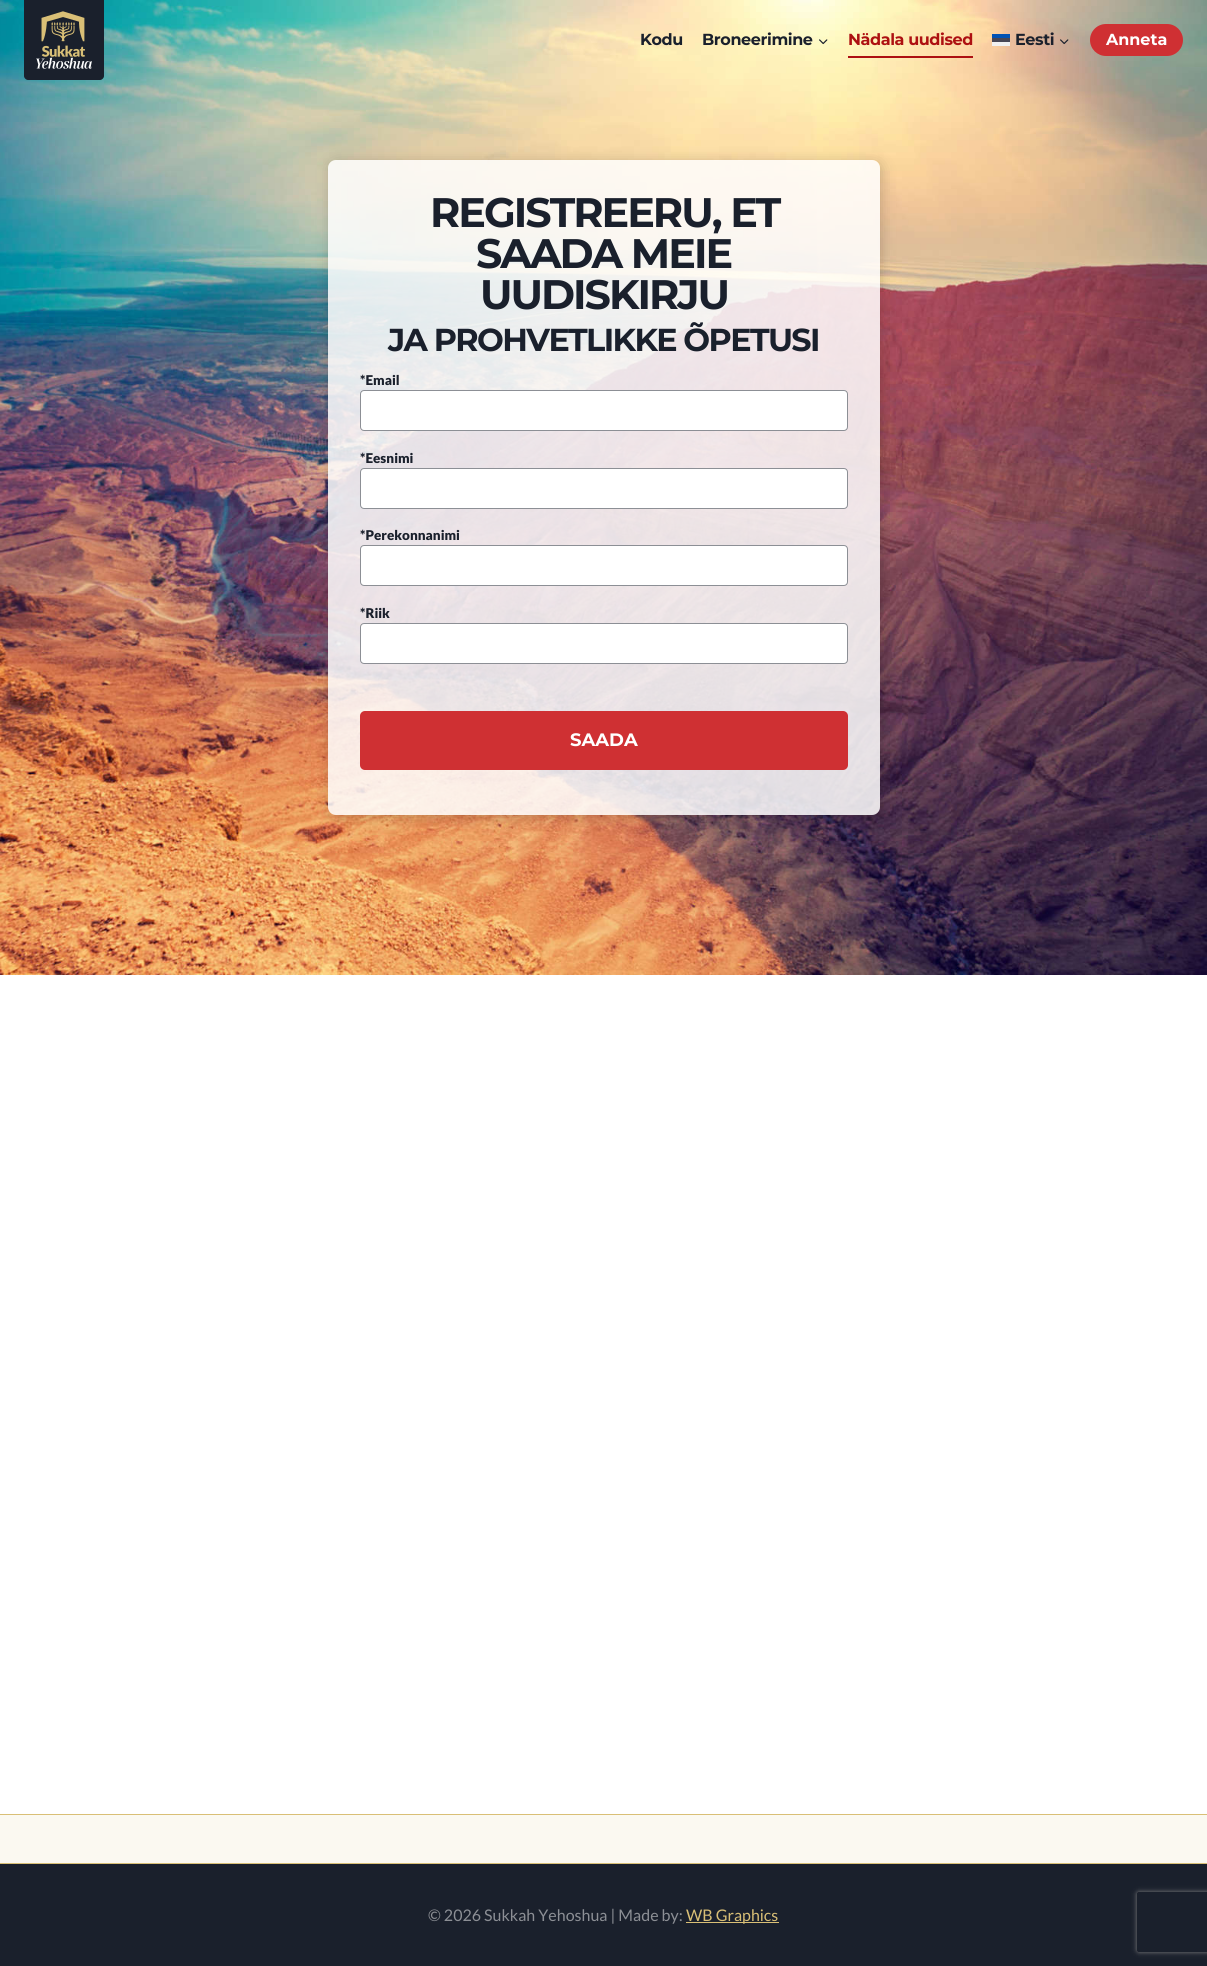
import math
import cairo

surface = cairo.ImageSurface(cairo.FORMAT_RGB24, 1207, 1966)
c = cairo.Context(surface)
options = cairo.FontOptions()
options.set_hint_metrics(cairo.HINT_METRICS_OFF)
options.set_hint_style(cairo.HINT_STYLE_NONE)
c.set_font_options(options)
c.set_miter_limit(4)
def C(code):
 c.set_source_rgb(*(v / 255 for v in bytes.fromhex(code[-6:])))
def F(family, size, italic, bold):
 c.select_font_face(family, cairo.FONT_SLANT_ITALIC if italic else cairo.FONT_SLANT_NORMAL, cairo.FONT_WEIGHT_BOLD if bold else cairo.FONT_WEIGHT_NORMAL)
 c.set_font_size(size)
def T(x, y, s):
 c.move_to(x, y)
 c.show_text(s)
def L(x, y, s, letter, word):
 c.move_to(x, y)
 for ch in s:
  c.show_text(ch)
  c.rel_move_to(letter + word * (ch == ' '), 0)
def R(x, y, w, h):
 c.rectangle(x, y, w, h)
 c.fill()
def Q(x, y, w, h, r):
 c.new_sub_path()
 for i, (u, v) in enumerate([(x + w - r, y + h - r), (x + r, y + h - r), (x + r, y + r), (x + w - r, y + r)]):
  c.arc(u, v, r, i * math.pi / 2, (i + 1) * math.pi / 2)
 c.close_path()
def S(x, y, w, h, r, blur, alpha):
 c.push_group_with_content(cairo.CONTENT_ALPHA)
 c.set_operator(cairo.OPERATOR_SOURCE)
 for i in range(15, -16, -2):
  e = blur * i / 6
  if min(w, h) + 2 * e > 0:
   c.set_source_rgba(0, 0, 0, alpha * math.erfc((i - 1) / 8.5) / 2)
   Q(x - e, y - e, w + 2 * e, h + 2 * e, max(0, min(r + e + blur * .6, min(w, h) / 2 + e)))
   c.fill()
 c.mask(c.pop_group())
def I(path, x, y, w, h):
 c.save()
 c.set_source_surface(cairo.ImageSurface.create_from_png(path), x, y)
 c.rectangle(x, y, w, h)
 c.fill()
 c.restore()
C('ffffff')
c.paint()
I('4.png',0,0,1207,975)
C('1a202c')
c.new_path()
c.move_to(24,0)
c.line_to(104,0)
c.line_to(104,76)
c.curve_to(104,78,102,80,100,80)
c.line_to(28,80)
c.curve_to(26,80,24,78,24,76)
c.close_path()
c.fill()
I('1.png',36,11,56,58)
F('Montserrat Thin',16,0,0)
L(640,45,'Kodu',-.4,0)
L(702,45,'Broneerimine',-.4,0)
I('2.png',819,39,9,6)
C('ad1011')
L(848,45,'Nädala uudised',-.4,0)
R(848,56,125,2)
C('464655')
R(992,38,18,4)
C('f0f0f0')
R(992,42,18,4)
C('0052b4')
R(992,34,18,4)
C('1a202c')
L(1015,45,'Eesti',-.4,0)
I('3.png',1060,39,9,6)
C('cf3033')
Q(1090,24,93,32,16)
c.fill()
C('ffffff')
T(1106,45,'Anneta')
c.save()
c.set_fill_rule(cairo.FILL_RULE_EVEN_ODD)
c.new_path()
c.move_to(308,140)
c.line_to(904,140)
c.line_to(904,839)
c.line_to(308,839)
c.close_path()
c.move_to(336,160)
c.line_to(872,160)
c.curve_to(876.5,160,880,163.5,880,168)
c.line_to(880,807)
c.curve_to(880,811.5,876.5,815,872,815)
c.line_to(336,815)
c.curve_to(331.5,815,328,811.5,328,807)
c.line_to(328,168)
c.curve_to(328,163.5,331.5,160,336,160)
c.close_path()
c.clip()
C('000000')
S(330,162,552,655,8,7,.2)
c.restore()
c.set_source_rgba(1,1,1,0.85)
Q(328,160,552,655,8)
c.fill()
F('Montserrat Thin',41.25,0,0)
C('1a202c')
L(430,227,'REGISTREERU, ET',-2,0)
L(476,268,'SAADA MEIE',-2,0)
L(480,309,'UUDISKIRJU',-2,0)
F('Montserrat Thin',31.75,0,0)
L(388,351,'JA PROHVETLIKKE ÕPETUSI',-1.6,0)
F('Lato Black',13.5,0,0)
T(360,385,'*Email')
C('ffffff')
Q(360.5,390.5,487,40,3.5)
c.fill_preserve()
C('8c8f95')
c.set_line_width(1)
c.stroke()
C('1a202c')
T(360,463,'*Eesnimi')
C('ffffff')
Q(360.5,468.5,487,40,3.5)
c.fill_preserve()
C('8c8f95')
c.stroke()
C('1a202c')
T(360,540,'*Perekonnanimi')
C('ffffff')
Q(360.5,545.5,487,40,3.5)
c.fill_preserve()
C('8c8f95')
c.stroke()
C('1a202c')
T(360,618,'*Riik')
C('ffffff')
Q(360.5,623.5,487,40,3.5)
c.fill_preserve()
C('8c8f95')
c.stroke()
C('cf3033')
Q(360,711,488,59,5)
c.fill()
F('Montserrat Thin',18,0,0)
C('ffffff')
T(570,746,'SAADA')
C('fbf9f1')
R(0,1815,1207,48)
C('d9bf76')
R(0,1814,1207,1)
R(0,1863,1207,1)
C('1a202c')
R(0,1864,1207,102)
F('Lato',16,0,0)
C('8c8f95')
T(428,1921,'© 2026 Sukkah Yehoshua | Made by:')
C('d9bf76')
R(686,1922,93,1)
T(686,1921,'WB Graphics')
c.save()
c.set_fill_rule(cairo.FILL_RULE_EVEN_ODD)
c.new_path()
c.move_to(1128,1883)
c.line_to(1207,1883)
c.line_to(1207,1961)
c.line_to(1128,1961)
c.close_path()
c.move_to(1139,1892)
c.line_to(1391,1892)
c.curve_to(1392,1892,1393,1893,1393,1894)
c.line_to(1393,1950)
c.curve_to(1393,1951,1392,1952,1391,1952)
c.line_to(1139,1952)
c.curve_to(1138,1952,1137,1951,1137,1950)
c.line_to(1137,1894)
c.curve_to(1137,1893,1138,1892,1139,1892)
c.close_path()
c.clip()
C('808080')
S(1137,1892,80,60,2,2.5,1)
c.restore()
surface.write_to_png('o.png')
